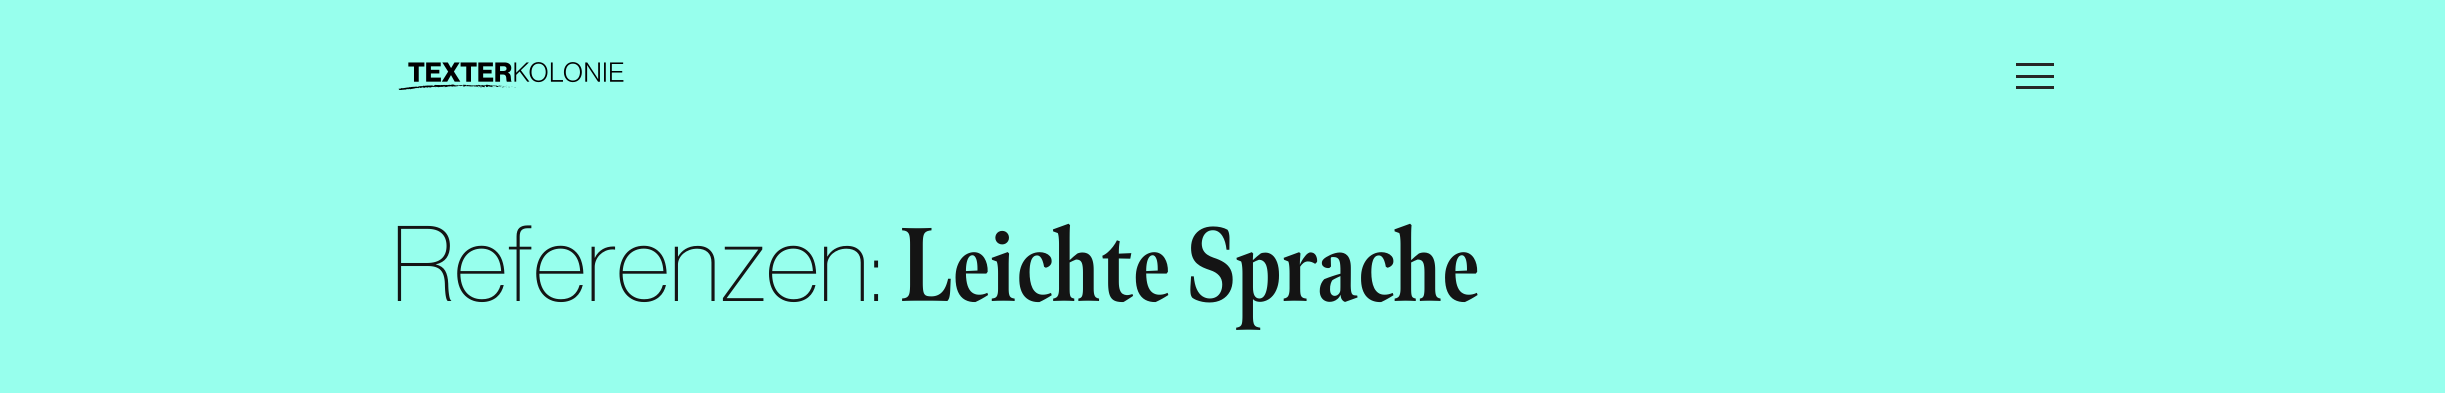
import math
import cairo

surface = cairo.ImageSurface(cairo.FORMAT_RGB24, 2445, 393)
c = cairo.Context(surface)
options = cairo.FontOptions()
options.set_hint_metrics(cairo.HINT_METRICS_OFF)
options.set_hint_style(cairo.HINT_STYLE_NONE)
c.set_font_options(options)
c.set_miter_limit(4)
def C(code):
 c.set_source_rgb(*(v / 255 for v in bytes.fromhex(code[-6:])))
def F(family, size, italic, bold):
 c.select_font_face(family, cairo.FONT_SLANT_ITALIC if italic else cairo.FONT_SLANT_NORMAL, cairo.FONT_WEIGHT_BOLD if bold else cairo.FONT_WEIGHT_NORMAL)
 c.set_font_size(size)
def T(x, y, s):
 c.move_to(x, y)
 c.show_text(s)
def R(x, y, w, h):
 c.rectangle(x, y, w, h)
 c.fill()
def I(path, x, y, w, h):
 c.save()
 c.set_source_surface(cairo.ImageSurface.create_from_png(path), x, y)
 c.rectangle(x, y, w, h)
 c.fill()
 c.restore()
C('97ffed')
c.paint()
I('1.png',398,62,226,28)
C('262626')
R(2016,63,38,3)
R(2016,75,38,3)
R(2016,86,38,3)
F('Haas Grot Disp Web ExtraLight',105,0,0)
C('141414')
T(391,301,'Referenzen:')
F('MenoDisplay',105,0,1)
T(900,301,'Leichte Sprache')
surface.write_to_png('o.png')
